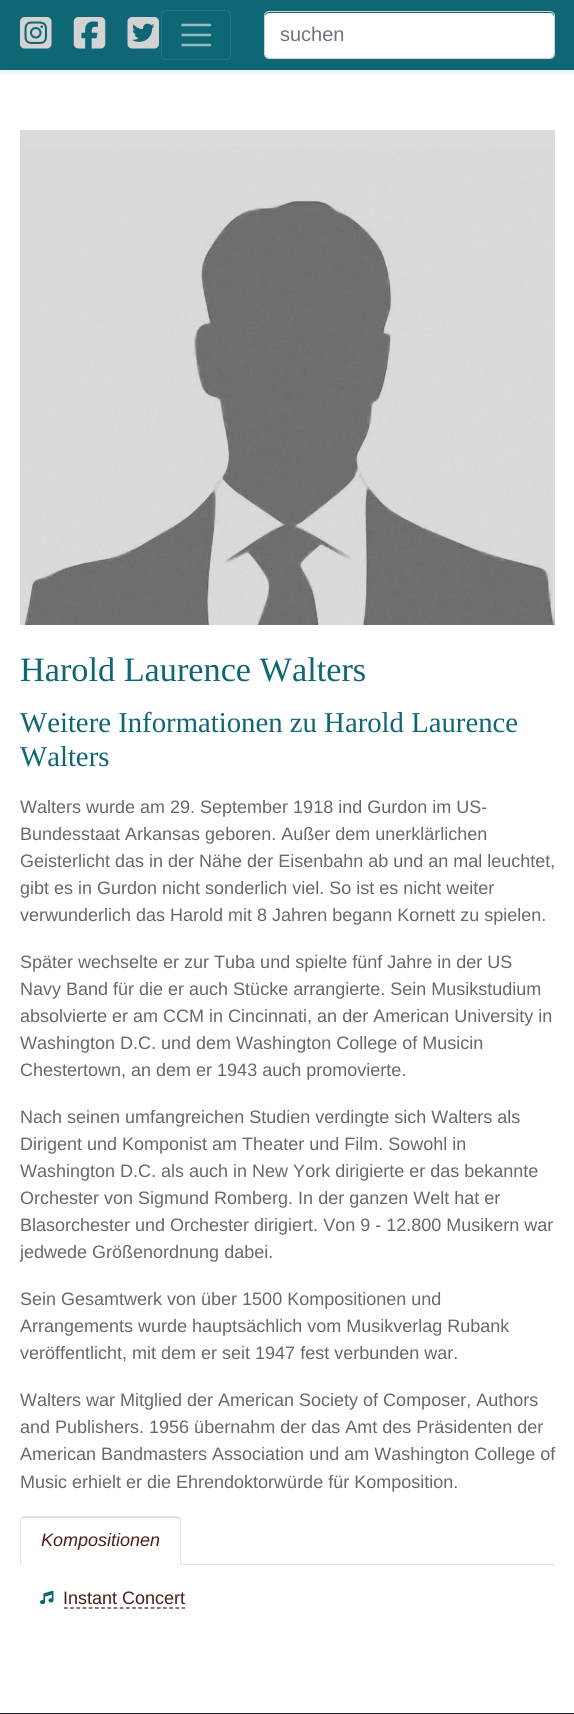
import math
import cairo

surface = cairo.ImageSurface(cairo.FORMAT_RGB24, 574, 1714)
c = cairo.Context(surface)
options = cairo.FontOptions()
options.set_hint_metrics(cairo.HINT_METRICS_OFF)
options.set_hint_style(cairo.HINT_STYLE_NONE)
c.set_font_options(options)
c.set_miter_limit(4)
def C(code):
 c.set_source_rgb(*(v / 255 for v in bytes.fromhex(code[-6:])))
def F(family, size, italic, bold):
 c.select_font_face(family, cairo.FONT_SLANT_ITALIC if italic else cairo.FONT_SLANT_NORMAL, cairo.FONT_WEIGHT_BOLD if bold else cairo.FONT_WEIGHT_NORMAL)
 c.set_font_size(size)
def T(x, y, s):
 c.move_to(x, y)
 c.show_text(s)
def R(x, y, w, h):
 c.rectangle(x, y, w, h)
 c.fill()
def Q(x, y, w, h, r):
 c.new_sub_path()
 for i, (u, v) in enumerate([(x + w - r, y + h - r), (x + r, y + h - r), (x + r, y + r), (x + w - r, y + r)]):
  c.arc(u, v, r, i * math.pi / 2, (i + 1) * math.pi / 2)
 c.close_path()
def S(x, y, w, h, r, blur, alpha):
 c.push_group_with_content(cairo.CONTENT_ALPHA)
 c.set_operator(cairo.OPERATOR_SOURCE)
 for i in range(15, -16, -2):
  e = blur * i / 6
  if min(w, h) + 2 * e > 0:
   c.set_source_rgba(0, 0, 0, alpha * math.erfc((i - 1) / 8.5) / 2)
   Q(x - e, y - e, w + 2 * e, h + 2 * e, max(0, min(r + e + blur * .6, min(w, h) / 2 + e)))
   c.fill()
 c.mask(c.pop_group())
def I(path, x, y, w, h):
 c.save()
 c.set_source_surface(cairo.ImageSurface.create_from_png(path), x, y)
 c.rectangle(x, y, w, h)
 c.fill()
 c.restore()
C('ffffff')
c.paint()
C('000000')
S(0,3,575,70,0,2.5,.07)
C('0f6674')
R(0,0,574,70)
I('1.png',20,17,32,32)
I('2.png',73,17,33,32)
I('3.png',127,17,32,32)
Q(161.5,10.5,69,49,4.5)
C('277582')
c.set_line_width(1)
c.stroke()
c.new_path()
c.move_to(182.5,25)
c.line_to(210,25)
c.move_to(182.5,35)
c.line_to(210,35)
c.move_to(182.5,45)
c.line_to(210,45)
C('93bac0')
c.set_line_width(2.5)
c.set_line_cap(cairo.LINE_CAP_ROUND)
c.stroke()
C('ffffff')
Q(265,13,289,45,4)
c.fill()
Q(264.5,11.5,290,47,4.5)
C('ced4da')
c.set_line_width(1)
c.set_line_cap(cairo.LINE_CAP_BUTT)
c.stroke()
F('Liberation Sans',20,0,0)
C('6c757d')
T(280,41,'suchen')
I('4.png',20,130,535,495)
F('Liberation Serif',34.25,0,0)
C('0f6674')
T(20,681,'Harold Laurence Walters')
F('Liberation Serif',28.75,0,0)
T(20,732,'Weitere Informationen zu Harold Laurence')
T(20,766,'Walters')
F('Liberation Sans',18,0,0)
C('686868')
T(20,813,'Walters wurde am 29. September 1918 ind Gurdon im US-')
T(20,840,'Bundesstaat Arkansas geboren. Außer dem unerklärlichen')
T(20,867,'Geisterlicht das in der Nähe der Eisenbahn ab und an mal leuchtet,')
T(20,894,'gibt es in Gurdon nicht sonderlich viel. So ist es nicht weiter')
T(20,921,'verwunderlich das Harold mit 8 Jahren begann Kornett zu spielen.')
T(20,968,'Später wechselte er zur Tuba und spielte fünf Jahre in der US')
T(20,995,'Navy Band für die er auch Stücke arrangierte. Sein Musikstudium')
T(20,1022,'absolvierte er am CCM in Cincinnati, an der American University in')
T(20,1049,'Washington D.C. und dem Washington College of Musicin')
T(20,1076,'Chestertown, an dem er 1943 auch promovierte.')
T(20,1123,'Nach seinen umfangreichen Studien verdingte sich Walters als')
T(20,1150,'Dirigent und Komponist am Theater und Film. Sowohl in')
T(20,1177,'Washington D.C. als auch in New York dirigierte er das bekannte')
T(20,1204,'Orchester von Sigmund Romberg. In der ganzen Welt hat er')
T(20,1231,'Blasorchester und Orchester dirigiert. Von 9 - 12.800 Musikern war')
T(20,1258,'jedwede Größenordnung dabei.')
T(20,1305,'Sein Gesamtwerk von über 1500 Kompositionen und')
T(20,1332,'Arrangements wurde hauptsächlich vom Musikverlag Rubank')
T(20,1359,'veröffentlicht, mit dem er seit 1947 fest verbunden war.')
T(20,1406,'Walters war Mitglied der American Society of Composer, Authors')
T(20,1433,'and Publishers. 1956 übernahm der das Amt des Präsidenten der')
T(20,1460,'American Bandmasters Association und am Washington College of')
T(20,1488,'Music erhielt er die Ehrendoktorwürde für Komposition.')
C('dee2e6')
R(181,1564,374,1)
c.new_path()
c.move_to(25,1518)
c.line_to(22,1519)
c.line_to(21,1518)
c.line_to(23,1516)
c.line_to(178,1516)
c.line_to(180,1518)
c.line_to(179,1519)
c.line_to(176,1518)
c.close_path()
c.fill()
c.new_path()
c.move_to(180,1518)
c.curve_to(181,1518,181,1520,181,1521)
c.line_to(181,1565)
c.line_to(180,1564)
c.line_to(180,1520)
c.line_to(179,1519)
c.close_path()
c.fill()
C('ffffff')
c.new_path()
c.move_to(181,1565)
c.line_to(180,1564)
c.line_to(21,1564)
c.line_to(20,1565)
c.close_path()
c.fill()
C('dee2e6')
c.new_path()
c.move_to(20,1565)
c.line_to(21,1564)
c.line_to(21,1520)
c.line_to(22,1519)
c.line_to(21,1518)
c.curve_to(20,1518,20,1520,20,1521)
c.close_path()
c.fill()
F('Liberation Sans',18,1,0)
C('4d1c1c')
T(41,1546,'Kompositionen')
I('5.png',40,1590,14,15)
F('Liberation Sans',18,0,0)
T(63,1604,'Instant Concert')
c.new_path()
c.move_to(64,1608)
c.line_to(185,1608)
c.set_line_width(1.2)
c.set_dash([3.75,2.44])
c.stroke()
C('212529')
R(0,1713,574,1)
surface.write_to_png('o.png')
